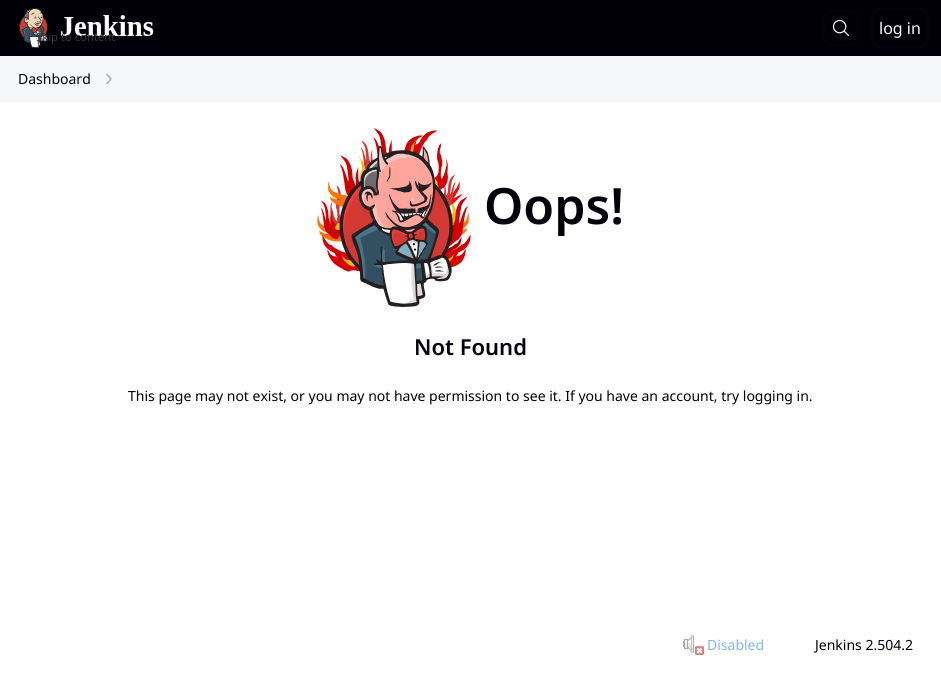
import math
import cairo

surface = cairo.ImageSurface(cairo.FORMAT_RGB24, 941, 676)
c = cairo.Context(surface)
options = cairo.FontOptions()
options.set_hint_metrics(cairo.HINT_METRICS_OFF)
options.set_hint_style(cairo.HINT_STYLE_NONE)
c.set_font_options(options)
c.set_miter_limit(4)
def C(code):
 c.set_source_rgb(*(v / 255 for v in bytes.fromhex(code[-6:])))
def F(family, size, italic, bold):
 c.select_font_face(family, cairo.FONT_SLANT_ITALIC if italic else cairo.FONT_SLANT_NORMAL, cairo.FONT_WEIGHT_BOLD if bold else cairo.FONT_WEIGHT_NORMAL)
 c.set_font_size(size)
def T(x, y, s):
 c.move_to(x, y)
 c.show_text(s)
def R(x, y, w, h):
 c.rectangle(x, y, w, h)
 c.fill()
def Q(x, y, w, h, r):
 c.new_sub_path()
 for i, (u, v) in enumerate([(x + w - r, y + h - r), (x + r, y + h - r), (x + r, y + r), (x + w - r, y + r)]):
  c.arc(u, v, r, i * math.pi / 2, (i + 1) * math.pi / 2)
 c.close_path()
def I(path, x, y, w, h):
 c.save()
 c.set_source_surface(cairo.ImageSurface.create_from_png(path), x, y)
 c.rectangle(x, y, w, h)
 c.fill()
 c.restore()
C('ffffff')
c.paint()
C('010009')
R(0,0,941,56)
I('1.png',19,8,29,40)
I('2.png',61,15,93,21)
F('Noto Sans',11.25,0,0)
C('39373e')
T(36,41,'Skip to content')
Q(824,11,34,34,9)
C('05040d')
c.stroke()
I('3.png',832,19,18,18)
Q(872,9,56,38,9)
c.stroke()
F('Noto Sans',16,0,0)
C('ffffff')
T(879,34,'log in')
C('f5f7f9')
R(0,56,941,46)
F('Noto Sans',14,0,0)
C('010009')
T(18,84,'Dashboard')
c.new_path()
c.move_to(107,74.5)
c.line_to(111,79)
c.line_to(107,83.5)
C('9db1cb')
c.set_line_width(1.5)
c.set_line_cap(cairo.LINE_CAP_ROUND)
c.set_line_join(cairo.LINE_JOIN_ROUND)
c.stroke()
I('4.png',317,128,154,179)
F('Noto Sans SemiBold',50,0,0)
C('010009')
T(484,224,'Oops!')
F('Noto Sans SemiBold',22,0,0)
T(414,355,'Not Found')
F('Noto Sans',14,0,0)
T(128,401,'This page may not exist, or you may not have permission to see it. If you have an account, try logging in.')
I('5.png',682,635,22,20)
C('80b3f9')
T(707,650,'Disabled')
C('010009')
T(815,650,'Jenkins 2.504.2')
surface.write_to_png('o.png')
